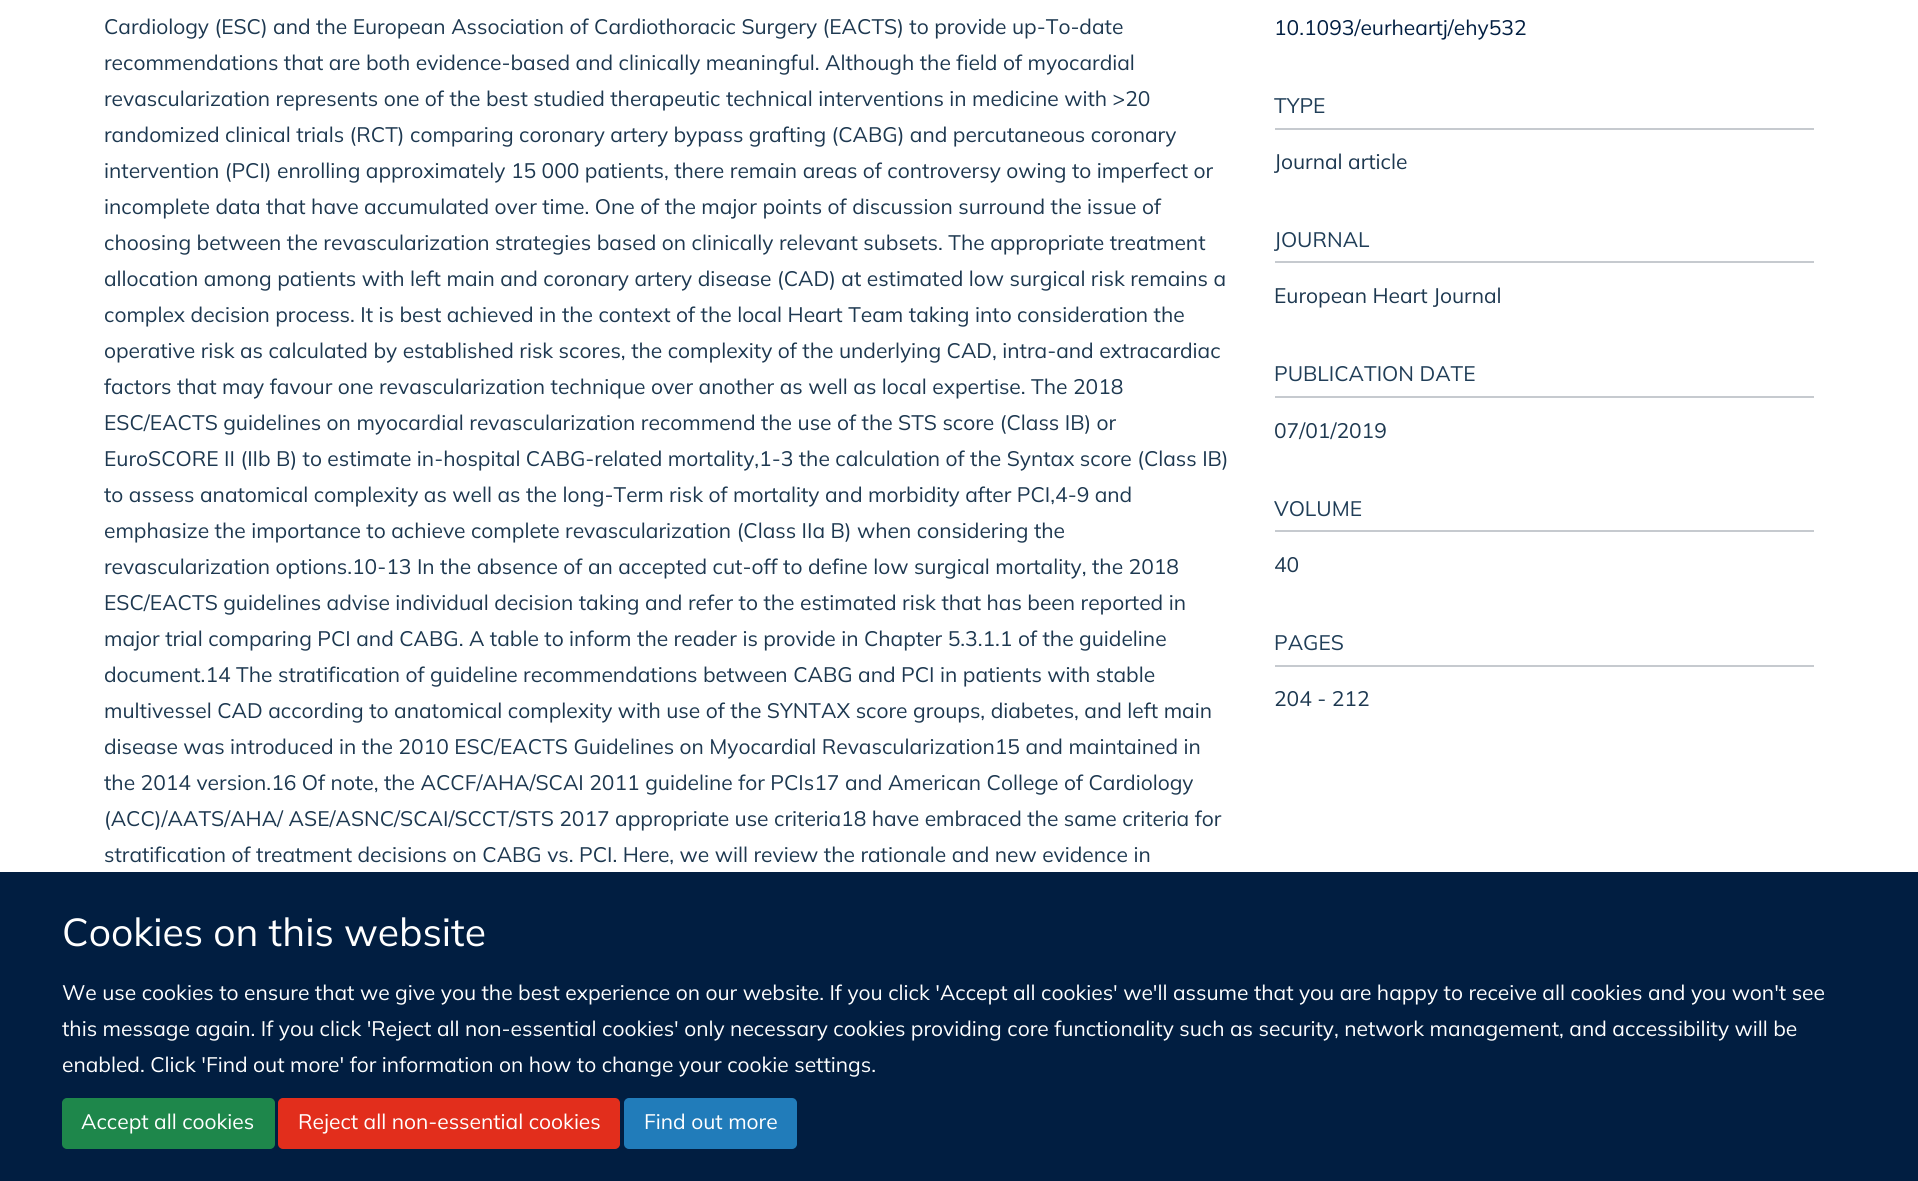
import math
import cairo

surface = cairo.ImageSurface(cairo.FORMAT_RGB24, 1918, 1181)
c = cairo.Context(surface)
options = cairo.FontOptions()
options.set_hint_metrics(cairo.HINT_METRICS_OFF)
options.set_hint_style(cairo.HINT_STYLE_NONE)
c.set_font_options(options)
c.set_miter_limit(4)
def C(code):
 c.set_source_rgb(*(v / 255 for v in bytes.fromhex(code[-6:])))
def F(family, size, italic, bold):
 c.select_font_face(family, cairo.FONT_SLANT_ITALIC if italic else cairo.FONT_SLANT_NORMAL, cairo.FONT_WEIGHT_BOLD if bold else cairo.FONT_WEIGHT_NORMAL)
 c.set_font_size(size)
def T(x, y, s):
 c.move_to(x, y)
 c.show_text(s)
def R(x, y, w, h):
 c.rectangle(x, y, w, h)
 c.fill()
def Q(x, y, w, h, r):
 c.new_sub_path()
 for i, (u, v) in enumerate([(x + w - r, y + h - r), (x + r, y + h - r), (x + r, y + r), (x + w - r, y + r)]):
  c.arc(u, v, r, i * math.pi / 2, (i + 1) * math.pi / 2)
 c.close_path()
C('ffffff')
c.paint()
F('Mulish',21,0,0)
C('1d3850')
T(104,34,'Cardiology (ESC) and the European Association of Cardiothoracic Surgery (EACTS) to provide up-To-date')
T(104,70,'recommendations that are both evidence-based and clinically meaningful. Although the field of myocardial')
T(104,106,'revascularization represents one of the best studied therapeutic technical interventions in medicine with >20')
T(104,142,'randomized clinical trials (RCT) comparing coronary artery bypass grafting (CABG) and percutaneous coronary')
T(104,178,'intervention (PCI) enrolling approximately 15 000 patients, there remain areas of controversy owing to imperfect or')
T(104,214,'incomplete data that have accumulated over time. One of the major points of discussion surround the issue of')
T(104,250,'choosing between the revascularization strategies based on clinically relevant subsets. The appropriate treatment')
T(104,286,'allocation among patients with left main and coronary artery disease (CAD) at estimated low surgical risk remains a')
T(104,322,'complex decision process. It is best achieved in the context of the local Heart Team taking into consideration the')
T(104,358,'operative risk as calculated by established risk scores, the complexity of the underlying CAD, intra-and extracardiac')
T(104,394,'factors that may favour one revascularization technique over another as well as local expertise. The 2018')
T(104,430,'ESC/EACTS guidelines on myocardial revascularization recommend the use of the STS score (Class IB) or')
T(104,466,'EuroSCORE II (IIb B) to estimate in-hospital CABG-related mortality,1-3 the calculation of the Syntax score (Class IB)')
T(104,502,'to assess anatomical complexity as well as the long-Term risk of mortality and morbidity after PCI,4-9 and')
T(104,538,'emphasize the importance to achieve complete revascularization (Class IIa B) when considering the')
T(104,574,'revascularization options.10-13 In the absence of an accepted cut-off to define low surgical mortality, the 2018')
T(104,610,'ESC/EACTS guidelines advise individual decision taking and refer to the estimated risk that has been reported in')
T(104,646,'major trial comparing PCI and CABG. A table to inform the reader is provide in Chapter 5.3.1.1 of the guideline')
T(104,682,'document.14 The stratification of guideline recommendations between CABG and PCI in patients with stable')
T(104,718,'multivessel CAD according to anatomical complexity with use of the SYNTAX score groups, diabetes, and left main')
T(104,754,'disease was introduced in the 2010 ESC/EACTS Guidelines on Myocardial Revascularization15 and maintained in')
T(104,790,'the 2014 version.16 Of note, the ACCF/AHA/SCAI 2011 guideline for PCIs17 and American College of Cardiology')
T(104,826,'(ACC)/AATS/AHA/ ASE/ASNC/SCAI/SCCT/STS 2017 appropriate use criteria18 have embraced the same criteria for')
T(104,862,'stratification of treatment decisions on CABG vs. PCI. Here, we will review the rationale and new evidence in')
C('011e41')
T(1274,35,'10.1093/eurheartj/ehy532')
C('c6cacf')
R(1275,128,539,2)
C('203e58')
T(1274,113,'TYPE')
C('1d3850')
T(1274,169,'Journal article')
C('c6cacf')
R(1275,261,539,2)
C('203e58')
T(1274,247,'JOURNAL')
C('1d3850')
T(1274,303,'European Heart Journal')
C('c6cacf')
R(1275,396,539,2)
C('203e58')
T(1274,381,'PUBLICATION DATE')
C('1d3850')
T(1274,438,'07/01/2019')
C('c6cacf')
R(1275,530,539,2)
C('203e58')
T(1274,516,'VOLUME')
C('1d3850')
T(1274,572,'40')
C('c6cacf')
R(1275,665,539,2)
C('203e58')
T(1274,650,'PAGES')
C('1d3850')
T(1274,706,'204 - 212')
C('011e41')
R(0,872,1918,309)
F('Mulish',39,0,0)
C('ffffff')
T(62,946,'Cookies on this website')
F('Mulish',21,0,0)
T(62,1000,'We use cookies to ensure that we give you the best experience on our website. If you click \'Accept all cookies\' we\'ll assume that you are happy to receive all cookies and you won\'t see')
T(62,1036,'this message again. If you click \'Reject all non-essential cookies\' only necessary cookies providing core functionality such as security, network management, and accessibility will be')
T(62,1072,'enabled. Click \'Find out more\' for information on how to change your cookie settings.')
C('1e874b')
Q(63,1099,211,49,4)
c.fill_preserve()
c.stroke()
C('ffffff')
T(81,1129,'Accept all cookies')
C('e22e1c')
Q(279,1099,340,49,4)
c.fill_preserve()
c.stroke()
C('ffffff')
T(298,1129,'Reject all non-essential cookies')
C('217cba')
Q(625,1099,171,49,4)
c.fill_preserve()
c.stroke()
C('ffffff')
T(644,1129,'Find out more')
surface.write_to_png('o.png')
